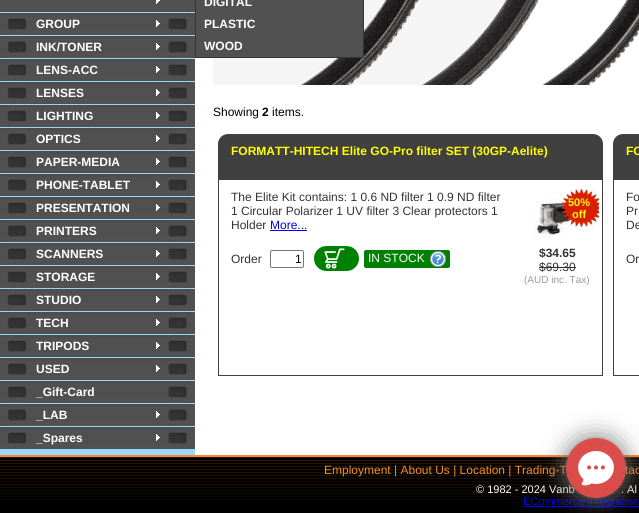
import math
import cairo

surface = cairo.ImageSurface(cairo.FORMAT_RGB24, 639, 513)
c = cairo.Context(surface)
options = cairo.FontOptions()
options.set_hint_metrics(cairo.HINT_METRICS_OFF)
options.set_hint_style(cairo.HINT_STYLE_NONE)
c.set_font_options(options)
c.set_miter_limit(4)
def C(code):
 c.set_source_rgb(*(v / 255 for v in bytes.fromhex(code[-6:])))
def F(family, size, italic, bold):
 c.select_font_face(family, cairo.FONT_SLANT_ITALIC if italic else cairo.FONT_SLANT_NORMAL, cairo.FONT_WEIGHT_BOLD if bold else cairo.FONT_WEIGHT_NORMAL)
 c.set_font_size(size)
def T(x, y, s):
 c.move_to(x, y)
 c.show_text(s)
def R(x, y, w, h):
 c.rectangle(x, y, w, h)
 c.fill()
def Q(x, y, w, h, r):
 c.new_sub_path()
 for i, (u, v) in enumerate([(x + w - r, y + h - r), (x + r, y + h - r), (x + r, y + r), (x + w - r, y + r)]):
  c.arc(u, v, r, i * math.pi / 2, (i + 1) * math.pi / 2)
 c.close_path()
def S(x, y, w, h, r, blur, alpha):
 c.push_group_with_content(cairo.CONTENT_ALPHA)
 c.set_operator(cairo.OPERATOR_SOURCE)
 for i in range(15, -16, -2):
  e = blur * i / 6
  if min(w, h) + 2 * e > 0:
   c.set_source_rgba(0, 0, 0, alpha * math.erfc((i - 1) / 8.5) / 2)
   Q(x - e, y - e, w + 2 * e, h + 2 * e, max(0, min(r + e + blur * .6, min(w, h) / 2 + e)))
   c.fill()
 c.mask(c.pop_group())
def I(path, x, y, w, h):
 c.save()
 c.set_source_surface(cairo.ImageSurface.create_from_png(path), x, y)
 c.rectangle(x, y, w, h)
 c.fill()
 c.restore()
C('9ad5fc')
c.paint()
C('515151')
R(0,13,195,22)
I('1.png',0,13,191,17)
I('2.png',156,20,4,7)
F('Liberation Sans',12,0,1)
C('ffffff')
T(36,28,'GROUP')
C('515151')
R(0,0,195,12)
I('3.png',156,0,4,4)
C('ffffff')
R(195,58,444,397)
I('4.png',213,0,426,85)
c.rectangle(195.5,-.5,168,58)
C('353535')
c.set_line_width(1)
c.stroke()
C('515151')
R(196,0,167,57)
C('ffffff')
T(204,6,'DIGITAL')
T(204,28,'PLASTIC')
T(204,50,'WOOD')
C('515151')
R(0,36,195,22)
I('1.png',0,36,191,17)
I('2.png',156,43,4,7)
C('ffffff')
T(36,51,'INK/TONER')
C('515151')
R(0,59,195,22)
I('1.png',0,59,191,17)
I('2.png',156,66,4,7)
C('ffffff')
T(36,74,'LENS-ACC')
C('515151')
R(0,82,195,22)
I('1.png',0,82,191,17)
I('2.png',156,89,4,7)
C('ffffff')
T(36,97,'LENSES')
C('515151')
R(0,105,195,22)
I('1.png',0,105,191,17)
I('2.png',156,112,4,7)
C('ffffff')
T(36,120,'LIGHTING')
C('515151')
R(0,128,195,22)
I('1.png',0,128,191,17)
I('2.png',156,135,4,7)
C('ffffff')
T(36,143,'OPTICS')
C('515151')
R(0,151,195,22)
I('1.png',0,151,191,17)
I('2.png',156,158,4,7)
C('ffffff')
T(36,166,'PAPER-MEDIA')
C('515151')
R(0,174,195,22)
I('1.png',0,174,191,17)
I('2.png',156,181,4,7)
C('ffffff')
T(36,189,'PHONE-TABLET')
C('515151')
R(0,197,195,22)
I('1.png',0,197,191,17)
I('2.png',156,204,4,7)
C('ffffff')
T(36,212,'PRESENTATION')
C('515151')
R(0,220,195,22)
I('1.png',0,220,191,17)
I('2.png',156,227,4,7)
C('ffffff')
T(36,235,'PRINTERS')
C('515151')
R(0,243,195,22)
I('1.png',0,243,191,17)
I('2.png',156,250,4,7)
C('ffffff')
T(36,258,'SCANNERS')
C('515151')
R(0,266,195,22)
I('1.png',0,266,191,17)
I('2.png',156,273,4,7)
C('ffffff')
T(36,281,'STORAGE')
C('515151')
R(0,289,195,22)
I('1.png',0,289,191,17)
I('2.png',156,296,4,7)
C('ffffff')
T(36,304,'STUDIO')
C('515151')
R(0,312,195,22)
I('1.png',0,312,191,17)
I('2.png',156,319,4,7)
C('ffffff')
T(36,327,'TECH')
C('515151')
R(0,335,195,22)
I('1.png',0,335,191,17)
I('2.png',156,342,4,7)
C('ffffff')
T(36,350,'TRIPODS')
C('515151')
R(0,358,195,22)
I('1.png',0,358,191,17)
I('2.png',156,365,4,7)
C('ffffff')
T(36,373,'USED')
C('515151')
R(0,381,195,22)
I('1.png',0,381,191,17)
C('ffffff')
T(36,396,'_Gift-Card')
C('515151')
R(0,404,195,22)
I('1.png',0,404,191,17)
I('2.png',156,411,4,7)
C('ffffff')
T(36,419,'_LAB')
C('515151')
R(0,427,195,22)
I('1.png',0,427,191,17)
I('2.png',156,434,4,7)
C('ffffff')
T(36,442,'_Spares')
F('Liberation Sans',12,0,0)
C('000000')
T(213,116,'Showing')
F('Liberation Sans',12,0,1)
T(262,116,'2')
F('Liberation Sans',12,0,0)
T(272,116,'items.')
C('404040')
c.new_path()
c.move_to(228,134)
c.line_to(593,134)
c.curve_to(598.5,134,603,138.5,603,144)
c.line_to(603,179)
c.line_to(218,179)
c.line_to(218,144)
c.curve_to(218,138.5,222.5,134,228,134)
c.close_path()
c.fill()
F('Liberation Sans',12,0,1)
C('ffff00')
T(231,155,'FORMATT-HITECH Elite GO-Pro filter SET (30GP-Aelite)')
c.rectangle(218.5,179.5,384,196)
C('404040')
c.stroke()
F('Liberation Sans',12,0,0)
C('333333')
T(231,201,'The Elite Kit contains: 1 0.6 ND filter 1 0.9 ND filter')
T(231,215,'1 Circular Polarizer 1 UV filter 3 Clear protectors 1')
I('5.png',534,198,41,40)
I('6.png',560,188,39,40)
F('Liberation Sans',11,0,1)
C('f8fb01')
T(568,206,'50%')
T(572,218,'off')
F('Liberation Sans',12,0,1)
C('333333')
T(539,257,'$34.65')
F('Liberation Sans',12,0,0)
T(539,271,'$69.30')
R(539,267,37,1)
F('Liberation Sans',10,0,0)
C('999999')
T(524,283,'(AUD inc. Tax)')
F('Liberation Sans',12,0,0)
C('333333')
T(231,229,'Holder')
C('0000ee')
T(270,229,'More...')
R(270,230,37,1)
C('333333')
T(231,263,'Order')
Q(270.5,250.5,33,17,1.5)
C('767676')
c.stroke()
C('000000')
T(295,263,'1')
C('008000')
Q(314,246,45,25,12.5)
c.fill()
I('7.png',324,248,21,21)
Q(364,250,86,18,2)
c.fill()
C('ffffff')
T(368,262,'IN STOCK')
I('8.png',430,251,16,16)
C('404040')
c.new_path()
c.move_to(623,134)
c.line_to(639,134)
c.curve_to(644.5,134,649,138.5,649,144)
c.line_to(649,179)
c.line_to(613,179)
c.line_to(613,144)
c.curve_to(613,138.5,617.5,134,623,134)
c.close_path()
c.fill()
F('Liberation Sans',12,0,1)
C('ffff00')
T(626,155,'FO')
c.rectangle(613.5,179.5,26,196)
C('404040')
c.stroke()
F('Liberation Sans',12,0,0)
C('333333')
T(626,201,'Fo')
T(626,215,'Pr')
T(626,229,'De')
T(626,263,'Or')
C('000000')
R(0,506,639,7)
I('9.png',0,455,639,51)
C('f28e24')
T(324,474,'Employment | About Us | Location | Trading-T')
T(625,474,'tac')
F('Liberation Sans',11,0,0)
C('ffffff')
T(476,493,'© 1982 - 2024 Vanb')
T(621,493,'. Al')
C('0000ee')
R(523,506,116,1)
T(523,505,'ECommerce Integration')
C('7a7a7a')
S(566,438,60,60,30,12.5,1)
C('db4d4b')
c.arc(596,468,30,0,2 * math.pi)
c.fill()
I('10.png',578,451,36,35)
surface.write_to_png('o.png')
